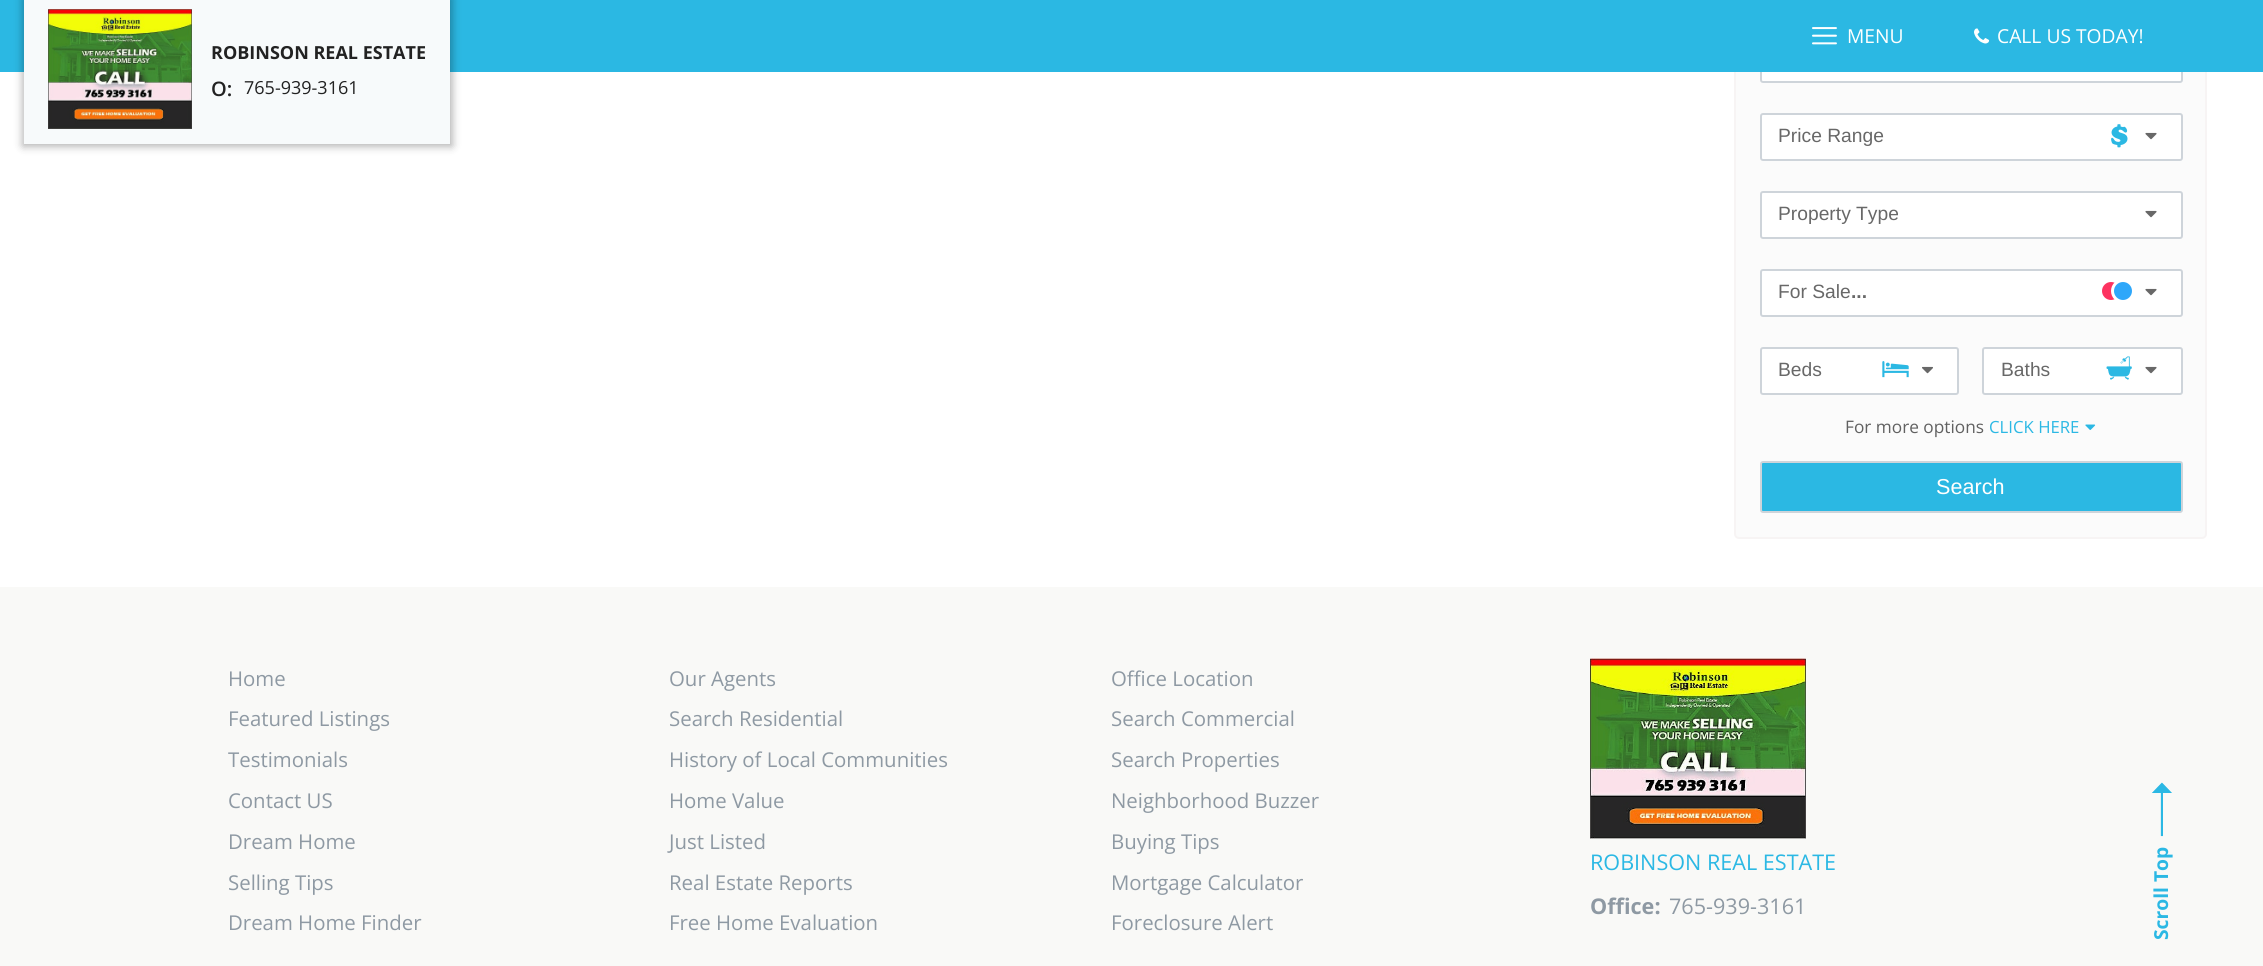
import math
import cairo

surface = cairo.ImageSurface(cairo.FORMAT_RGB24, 2263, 966)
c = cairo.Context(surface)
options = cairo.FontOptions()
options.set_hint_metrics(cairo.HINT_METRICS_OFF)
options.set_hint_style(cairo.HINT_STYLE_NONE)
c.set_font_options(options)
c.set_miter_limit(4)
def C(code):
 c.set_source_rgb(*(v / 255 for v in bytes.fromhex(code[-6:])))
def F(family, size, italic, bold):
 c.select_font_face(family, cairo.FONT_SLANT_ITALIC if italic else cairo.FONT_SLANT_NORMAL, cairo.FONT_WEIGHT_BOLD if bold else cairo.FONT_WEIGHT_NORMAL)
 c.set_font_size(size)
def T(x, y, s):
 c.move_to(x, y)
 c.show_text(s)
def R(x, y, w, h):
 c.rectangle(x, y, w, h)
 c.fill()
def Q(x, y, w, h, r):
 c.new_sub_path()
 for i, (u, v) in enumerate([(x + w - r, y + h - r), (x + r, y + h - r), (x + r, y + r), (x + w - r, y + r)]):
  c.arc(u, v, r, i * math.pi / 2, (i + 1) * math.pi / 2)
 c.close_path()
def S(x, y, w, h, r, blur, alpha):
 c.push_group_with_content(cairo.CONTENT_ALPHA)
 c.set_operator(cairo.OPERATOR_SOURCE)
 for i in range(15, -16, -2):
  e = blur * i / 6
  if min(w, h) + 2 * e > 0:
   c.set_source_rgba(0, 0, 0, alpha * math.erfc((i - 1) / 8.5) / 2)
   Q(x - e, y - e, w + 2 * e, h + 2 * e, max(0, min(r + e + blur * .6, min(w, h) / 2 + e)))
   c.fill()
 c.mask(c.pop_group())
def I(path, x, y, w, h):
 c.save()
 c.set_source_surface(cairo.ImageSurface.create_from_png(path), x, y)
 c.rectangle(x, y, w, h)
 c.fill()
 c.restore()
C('ffffff')
c.paint()
C('fbfbfb')
Q(1735,-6,471,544,4)
c.fill_preserve()
C('f7f4f4')
c.stroke()
C('ffffff')
Q(1761,36,421,46,2)
c.fill_preserve()
C('ced4da')
c.stroke()
C('2bb8e3')
R(0,0,2263,72)
I('1.png',1812,27,25,18)
F('Open Sans',19.25,0,0)
C('fffffe')
T(1847,43,'MENU')
I('2.png',1974,28,16,16)
T(1997,43,'CALL US TODAY!')
C('000000')
S(23,-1,429,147,0,4.5,.33)
C('f7fafb')
R(24,0,426,144)
I('3.png',48,9,144,120)
F('Open Sans',18,0,1)
C('222222')
T(211,59,'ROBINSON REAL ESTATE')
F('Open Sans SemiBold',20,0,0)
T(211,96,'O:')
F('Open Sans',18,0,0)
T(244,94,'765-939-3161')
C('ffffff')
Q(1761,114,421,46,2)
c.fill_preserve()
C('ced4da')
c.stroke()
F('Liberation Sans',19.25,0,0)
C('686868')
T(1778,142,'Price Range')
I('4.png',2111,124,17,24)
I('5.png',2145,132,12,8)
C('ffffff')
Q(1761,192,421,46,2)
c.fill_preserve()
C('ced4da')
c.stroke()
C('686868')
T(1778,220,'Property Type')
I('5.png',2145,210,12,8)
C('ffffff')
Q(1761,270,421,46,2)
c.fill_preserve()
C('ced4da')
c.stroke()
C('fd3360')
c.arc(2111,291,10.5,0,2 * math.pi)
c.fill_preserve()
C('ffffff')
c.set_line_width(3)
c.stroke()
C('686868')
T(1778,298,'For Sale')
C('2ea7fa')
c.new_path()
c.arc(2123,291,10.5,0,2 * math.pi)
c.fill_preserve()
C('ffffff')
c.stroke()
I('5.png',2145,288,12,8)
F('Liberation Sans',19.25,0,1)
C('686868')
T(1851,298,'...')
C('ffffff')
Q(1761,348,197,46,2)
c.fill_preserve()
C('ced4da')
c.set_line_width(2)
c.stroke()
F('Liberation Sans',19.25,0,0)
C('686868')
T(1778,376,'Beds')
I('6.png',1882,361,27,17)
I('7.png',1922,366,11,8)
C('ffffff')
Q(1983,348,199,46,2)
c.fill_preserve()
C('ced4da')
c.stroke()
C('686868')
T(2001,376,'Baths')
I('8.png',2106,356,26,24)
I('5.png',2145,366,12,8)
F('Open Sans',17.25,0,0)
C('616161')
T(1845,433,'For more options')
F('Open Sans',16.75,0,0)
C('2bb8e4')
T(1989,433,'CLICK HERE')
I('9.png',2085,424,11,6)
C('2bb8e3')
Q(1761,462,421,50,2)
c.fill_preserve()
C('ced4da')
c.stroke()
F('Liberation Sans',21.6,0,0)
C('fffffe')
T(1936,494,'Search')
C('f9f9f7')
R(0,587,2263,379)
F('Open Sans',20.4,0,0)
C('8e99a3')
T(228,686,'Home')
T(669,686,'Our Agents')
T(1111,686,'Office Location')
T(228,726,'Featured Listings')
T(669,726,'Search Residential')
T(1111,726,'Search Commercial')
T(228,767,'Testimonials')
T(669,767,'History of Local Communities')
T(1111,767,'Search Properties')
T(228,808,'Contact US')
T(669,808,'Home Value')
T(1111,808,'Neighborhood Buzzer')
T(228,849,'Dream Home')
T(669,849,'Just Listed')
T(1111,849,'Buying Tips')
T(228,890,'Selling Tips')
T(669,890,'Real Estate Reports')
T(1111,890,'Mortgage Calculator')
T(228,930,'Dream Home Finder')
T(669,930,'Free Home Evaluation')
T(1111,930,'Foreclosure Alert')
I('10.png',1590,658,216,181)
F('Open Sans',21.6,0,0)
C('2bb8e4')
T(1590,870,'ROBINSON REAL ESTATE')
F('Open Sans',21.6,0,1)
C('8e99a3')
T(1590,914,'Office:')
F('Open Sans',21.6,0,0)
T(1669,914,'765-939-3161')
I('11.png',2152,782,20,55)
F('Open Sans',19.25,0,1)
C('2bb8e4')
c.save()
c.translate(2168,940)
c.rotate(-90 * math.pi / 180)
T(0,0,'Scroll Top')
c.restore()
surface.write_to_png('o.png')
